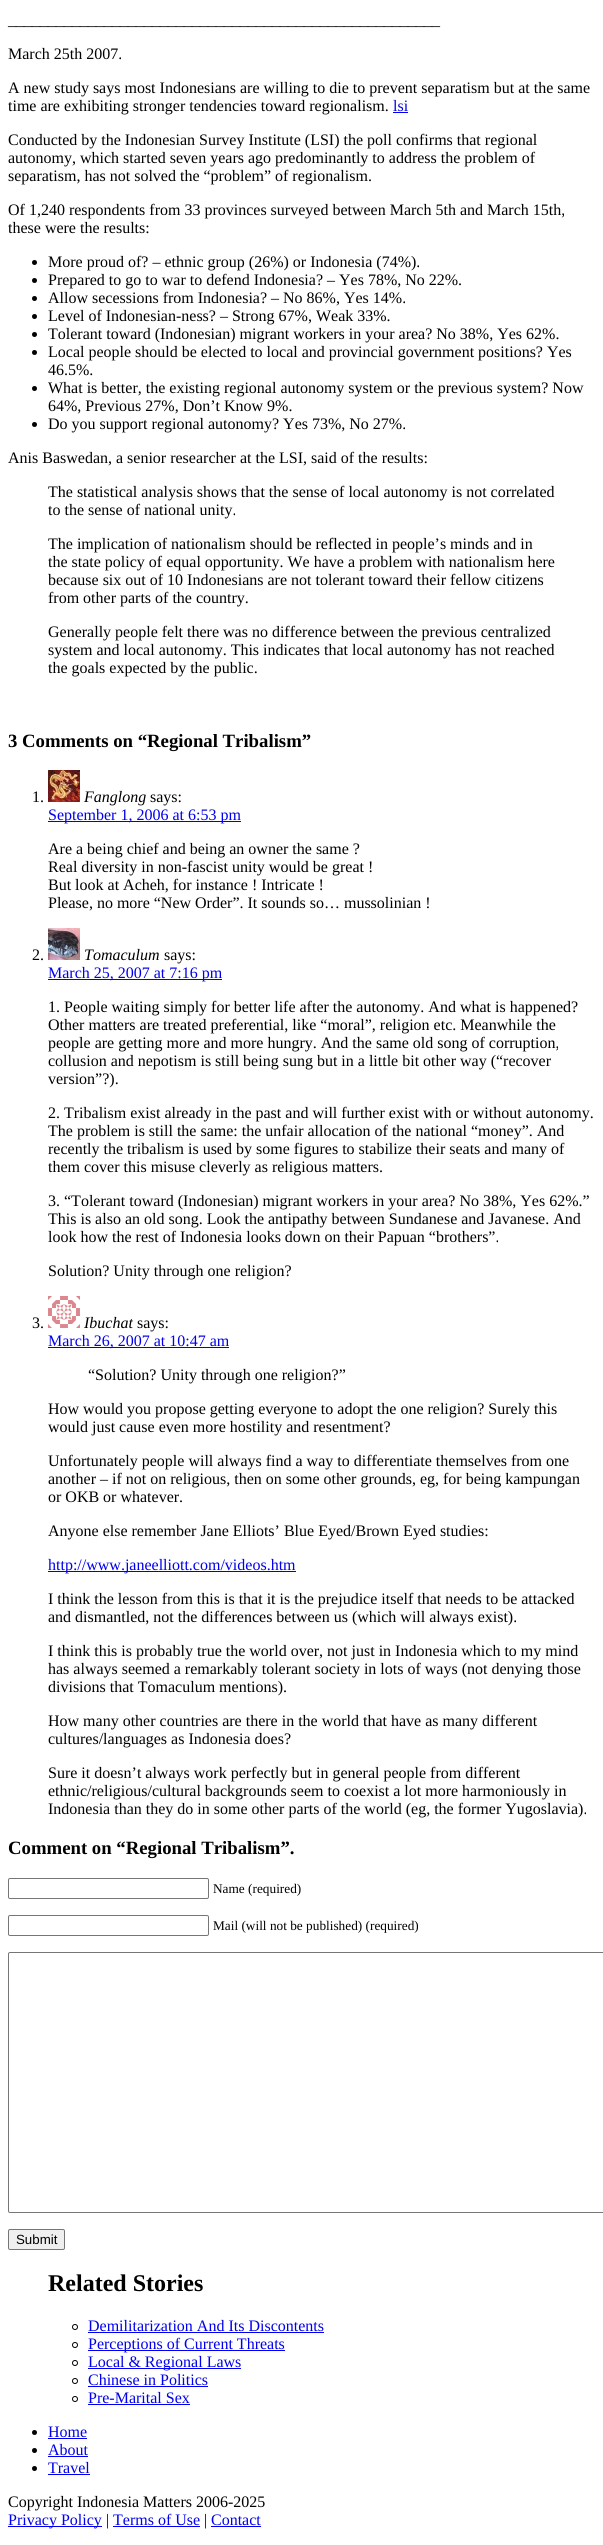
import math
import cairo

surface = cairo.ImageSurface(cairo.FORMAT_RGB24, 603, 2545)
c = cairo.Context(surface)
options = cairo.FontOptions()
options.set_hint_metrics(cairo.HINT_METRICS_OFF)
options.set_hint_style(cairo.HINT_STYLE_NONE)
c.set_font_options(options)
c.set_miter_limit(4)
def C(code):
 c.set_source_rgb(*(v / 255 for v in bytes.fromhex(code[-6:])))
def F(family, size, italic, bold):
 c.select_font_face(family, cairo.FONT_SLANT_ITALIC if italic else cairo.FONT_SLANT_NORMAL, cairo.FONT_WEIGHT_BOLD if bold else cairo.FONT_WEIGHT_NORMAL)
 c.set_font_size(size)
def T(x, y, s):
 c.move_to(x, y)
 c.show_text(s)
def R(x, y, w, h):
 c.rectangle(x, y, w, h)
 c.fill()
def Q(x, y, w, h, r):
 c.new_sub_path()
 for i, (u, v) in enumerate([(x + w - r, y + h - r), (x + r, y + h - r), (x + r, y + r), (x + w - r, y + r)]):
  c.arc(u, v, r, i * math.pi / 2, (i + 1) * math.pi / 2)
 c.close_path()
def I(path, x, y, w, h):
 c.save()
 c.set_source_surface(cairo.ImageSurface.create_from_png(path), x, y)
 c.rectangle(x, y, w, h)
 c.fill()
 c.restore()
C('ffffff')
c.paint()
F('Liberation Serif',16,0,0)
C('000000')
T(8,25,'______________________________________________________')
T(8,59,'March 25th 2007.')
T(8,93,'A new study says most Indonesians are willing to die to prevent separatism but at the same')
T(8,111,'time are exhibiting stronger tendencies toward regionalism.')
C('0000ee')
T(393,111,'lsi')
R(393,112,15,1)
C('000000')
T(8,145,'Conducted by the Indonesian Survey Institute (LSI) the poll confirms that regional')
T(8,163,'autonomy, which started seven years ago predominantly to address the problem of')
T(8,181,'separatism, has not solved the “problem” of regionalism.')
T(8,215,'Of 1,240 respondents from 33 provinces surveyed between March 5th and March 15th,')
T(8,233,'these were the results:')
c.new_path()
c.arc(34.5,262.5,2.5,0,2 * math.pi)
c.fill()
T(48,267,'More proud of? – ethnic group (26%) or Indonesia (74%).')
c.new_path()
c.arc(34.5,280.5,2.5,0,2 * math.pi)
c.fill()
T(48,285,'Prepared to go to war to defend Indonesia? – Yes 78%, No 22%.')
c.new_path()
c.arc(34.5,298.5,2.5,0,2 * math.pi)
c.fill()
T(48,303,'Allow secessions from Indonesia? – No 86%, Yes 14%.')
c.new_path()
c.arc(34.5,316.5,2.5,0,2 * math.pi)
c.fill()
T(48,321,'Level of Indonesian-ness? – Strong 67%, Weak 33%.')
c.new_path()
c.arc(34.5,334.5,2.5,0,2 * math.pi)
c.fill()
T(48,339,'Tolerant toward (Indonesian) migrant workers in your area? No 38%, Yes 62%.')
c.new_path()
c.arc(34.5,352.5,2.5,0,2 * math.pi)
c.fill()
T(48,357,'Local people should be elected to local and provincial government positions? Yes')
T(48,375,'46.5%.')
c.new_path()
c.arc(34.5,388.5,2.5,0,2 * math.pi)
c.fill()
T(48,393,'What is better, the existing regional autonomy system or the previous system? Now')
T(48,411,'64%, Previous 27%, Don’t Know 9%.')
c.new_path()
c.arc(34.5,424.5,2.5,0,2 * math.pi)
c.fill()
T(48,429,'Do you support regional autonomy? Yes 73%, No 27%.')
T(8,463,'Anis Baswedan, a senior researcher at the LSI, said of the results:')
T(48,497,'The statistical analysis shows that the sense of local autonomy is not correlated')
T(48,515,'to the sense of national unity.')
T(48,549,'The implication of nationalism should be reflected in people’s minds and in')
T(48,567,'the state policy of equal opportunity. We have a problem with nationalism here')
T(48,585,'because six out of 10 Indonesians are not tolerant toward their fellow citizens')
T(48,603,'from other parts of the country.')
T(48,637,'Generally people felt there was no difference between the previous centralized')
T(48,655,'system and local autonomy. This indicates that local autonomy has not reached')
T(48,673,'the goals expected by the public.')
F('Liberation Serif',18.75,0,1)
T(8,747,'3 Comments on “Regional Tribalism”')
F('Liberation Serif',16,0,0)
T(32,802,'1.')
I('1.png',48,770,32,32)
F('Liberation Serif',16,1,0)
T(84,802,'Fanglong')
F('Liberation Serif',16,0,0)
T(150,802,'says:')
C('0000ee')
R(48,821,193,1)
T(48,820,'September 1, 2006 at 6:53 pm')
C('000000')
T(48,854,'Are a being chief and being an owner the same ?')
T(48,872,'Real diversity in non-fascist unity would be great !')
T(48,890,'But look at Acheh, for instance ! Intricate !')
T(48,908,'Please, no more “New Order”. It sounds so… mussolinian !')
T(32,960,'2.')
I('2.png',48,928,32,32)
F('Liberation Serif',16,1,0)
T(84,960,'Tomaculum')
F('Liberation Serif',16,0,0)
T(164,960,'says:')
C('0000ee')
R(48,979,174,1)
T(48,978,'March 25, 2007 at 7:16 pm')
C('000000')
T(48,1012,'1. People waiting simply for better life after the autonomy. And what is happened?')
T(48,1030,'Other matters are treated preferential, like “moral”, religion etc. Meanwhile the')
T(48,1048,'people are getting more and more hungry. And the same old song of corruption,')
T(48,1066,'collusion and nepotism is still being sung but in a little bit other way (“recover')
T(48,1084,'version”?).')
T(48,1118,'2. Tribalism exist already in the past and will further exist with or without autonomy.')
T(48,1136,'The problem is still the same: the unfair allocation of the national “money”. And')
T(48,1154,'recently the tribalism is used by some figures to stabilize their seats and many of')
T(48,1172,'them cover this misuse cleverly as religious matters.')
T(48,1206,'3. “Tolerant toward (Indonesian) migrant workers in your area? No 38%, Yes 62%.”')
T(48,1224,'This is also an old song. Look the antipathy between Sundanese and Javanese. And')
T(48,1242,'look how the rest of Indonesia looks down on their Papuan “brothers”.')
T(48,1276,'Solution? Unity through one religion?')
T(32,1328,'3.')
I('3.png',48,1296,32,32)
F('Liberation Serif',16,1,0)
T(84,1328,'Ibuchat')
F('Liberation Serif',16,0,0)
T(137,1328,'says:')
C('0000ee')
R(48,1347,181,1)
T(48,1346,'March 26, 2007 at 10:47 am')
C('000000')
T(88,1380,'“Solution? Unity through one religion?”')
T(48,1414,'How would you propose getting everyone to adopt the one religion? Surely this')
T(48,1432,'would just cause even more hostility and resentment?')
T(48,1466,'Unfortunately people will always find a way to differentiate themselves from one')
T(48,1484,'another – if not on religious, then on some other grounds, eg, for being kampungan')
T(48,1502,'or OKB or whatever.')
T(48,1536,'Anyone else remember Jane Elliots’ Blue Eyed/Brown Eyed studies:')
C('0000ee')
R(48,1571,248,1)
T(48,1570,'http://www.janeelliott.com/videos.htm')
C('000000')
T(48,1604,'I think the lesson from this is that it is the prejudice itself that needs to be attacked')
T(48,1622,'and dismantled, not the differences between us (which will always exist).')
T(48,1656,'I think this is probably true the world over, not just in Indonesia which to my mind')
T(48,1674,'has always seemed a remarkably tolerant society in lots of ways (not denying those')
T(48,1692,'divisions that Tomaculum mentions).')
T(48,1726,'How many other countries are there in the world that have as many different')
T(48,1744,'cultures/languages as Indonesia does?')
T(48,1778,'Sure it doesn’t always work perfectly but in general people from different')
T(48,1796,'ethnic/religious/cultural backgrounds seem to coexist a lot more harmoniously in')
T(48,1814,'Indonesia than they do in some other parts of the world (eg, the former Yugoslavia).')
F('Liberation Serif',18.75,0,1)
T(8,1854,'Comment on “Regional Tribalism”.')
Q(8.5,1878.5,200,20,1.5)
C('767676')
c.set_line_width(1)
c.stroke()
F('Liberation Serif',13.3,0,0)
C('000000')
T(213,1893,'Name (required)')
Q(8.5,1915.5,200,20,1.5)
C('767676')
c.stroke()
C('000000')
T(213,1930,'Mail (will not be published) (required)')
Q(8.5,1952.5,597,260,1.5)
C('767676')
c.stroke()
C('efefef')
Q(8.5,2229.5,56,20,1.5)
c.fill_preserve()
C('767676')
c.stroke()
F('Liberation Sans',13.3,0,0)
C('000000')
T(16,2244,'Submit')
F('Liberation Serif',24,0,1)
T(48,2291,'Related Stories')
c.new_path()
c.arc(75,2327,2.5,0,2 * math.pi)
c.stroke()
F('Liberation Serif',16,0,0)
C('0000ee')
T(88,2331,'Demilitarization And Its Discontents')
R(88,2332,236,1)
c.new_path()
c.arc(75,2345,2.5,0,2 * math.pi)
C('000000')
c.stroke()
C('0000ee')
R(88,2350,197,1)
T(88,2349,'Perceptions of Current Threats')
c.new_path()
c.arc(75,2363,2.5,0,2 * math.pi)
C('000000')
c.stroke()
C('0000ee')
R(88,2368,153,1)
T(88,2367,'Local & Regional Laws')
c.new_path()
c.arc(75,2381,2.5,0,2 * math.pi)
C('000000')
c.stroke()
C('0000ee')
T(88,2385,'Chinese in Politics')
R(88,2386,120,1)
c.new_path()
c.arc(75,2399,2.5,0,2 * math.pi)
C('000000')
c.stroke()
C('0000ee')
T(88,2403,'Pre-Marital Sex')
R(88,2404,102,1)
C('000000')
c.new_path()
c.arc(34.5,2432.5,2.5,0,2 * math.pi)
c.fill()
C('0000ee')
T(48,2437,'Home')
R(48,2438,39,1)
C('000000')
c.new_path()
c.arc(34.5,2450.5,2.5,0,2 * math.pi)
c.fill()
C('0000ee')
T(48,2455,'About')
R(48,2456,40,1)
C('000000')
c.new_path()
c.arc(34.5,2468.5,2.5,0,2 * math.pi)
c.fill()
C('0000ee')
T(48,2473,'Travel')
R(48,2474,42,1)
C('000000')
T(8,2507,'Copyright Indonesia Matters 2006-2025')
C('0000ee')
R(8,2526,94,1)
T(8,2525,'Privacy Policy')
C('000000')
T(106,2525,'|')
C('0000ee')
T(113,2525,'Terms of Use')
R(113,2526,87,1)
C('000000')
T(204,2525,'|')
C('0000ee')
T(211,2525,'Contact')
R(211,2526,50,1)
surface.write_to_png('o.png')
